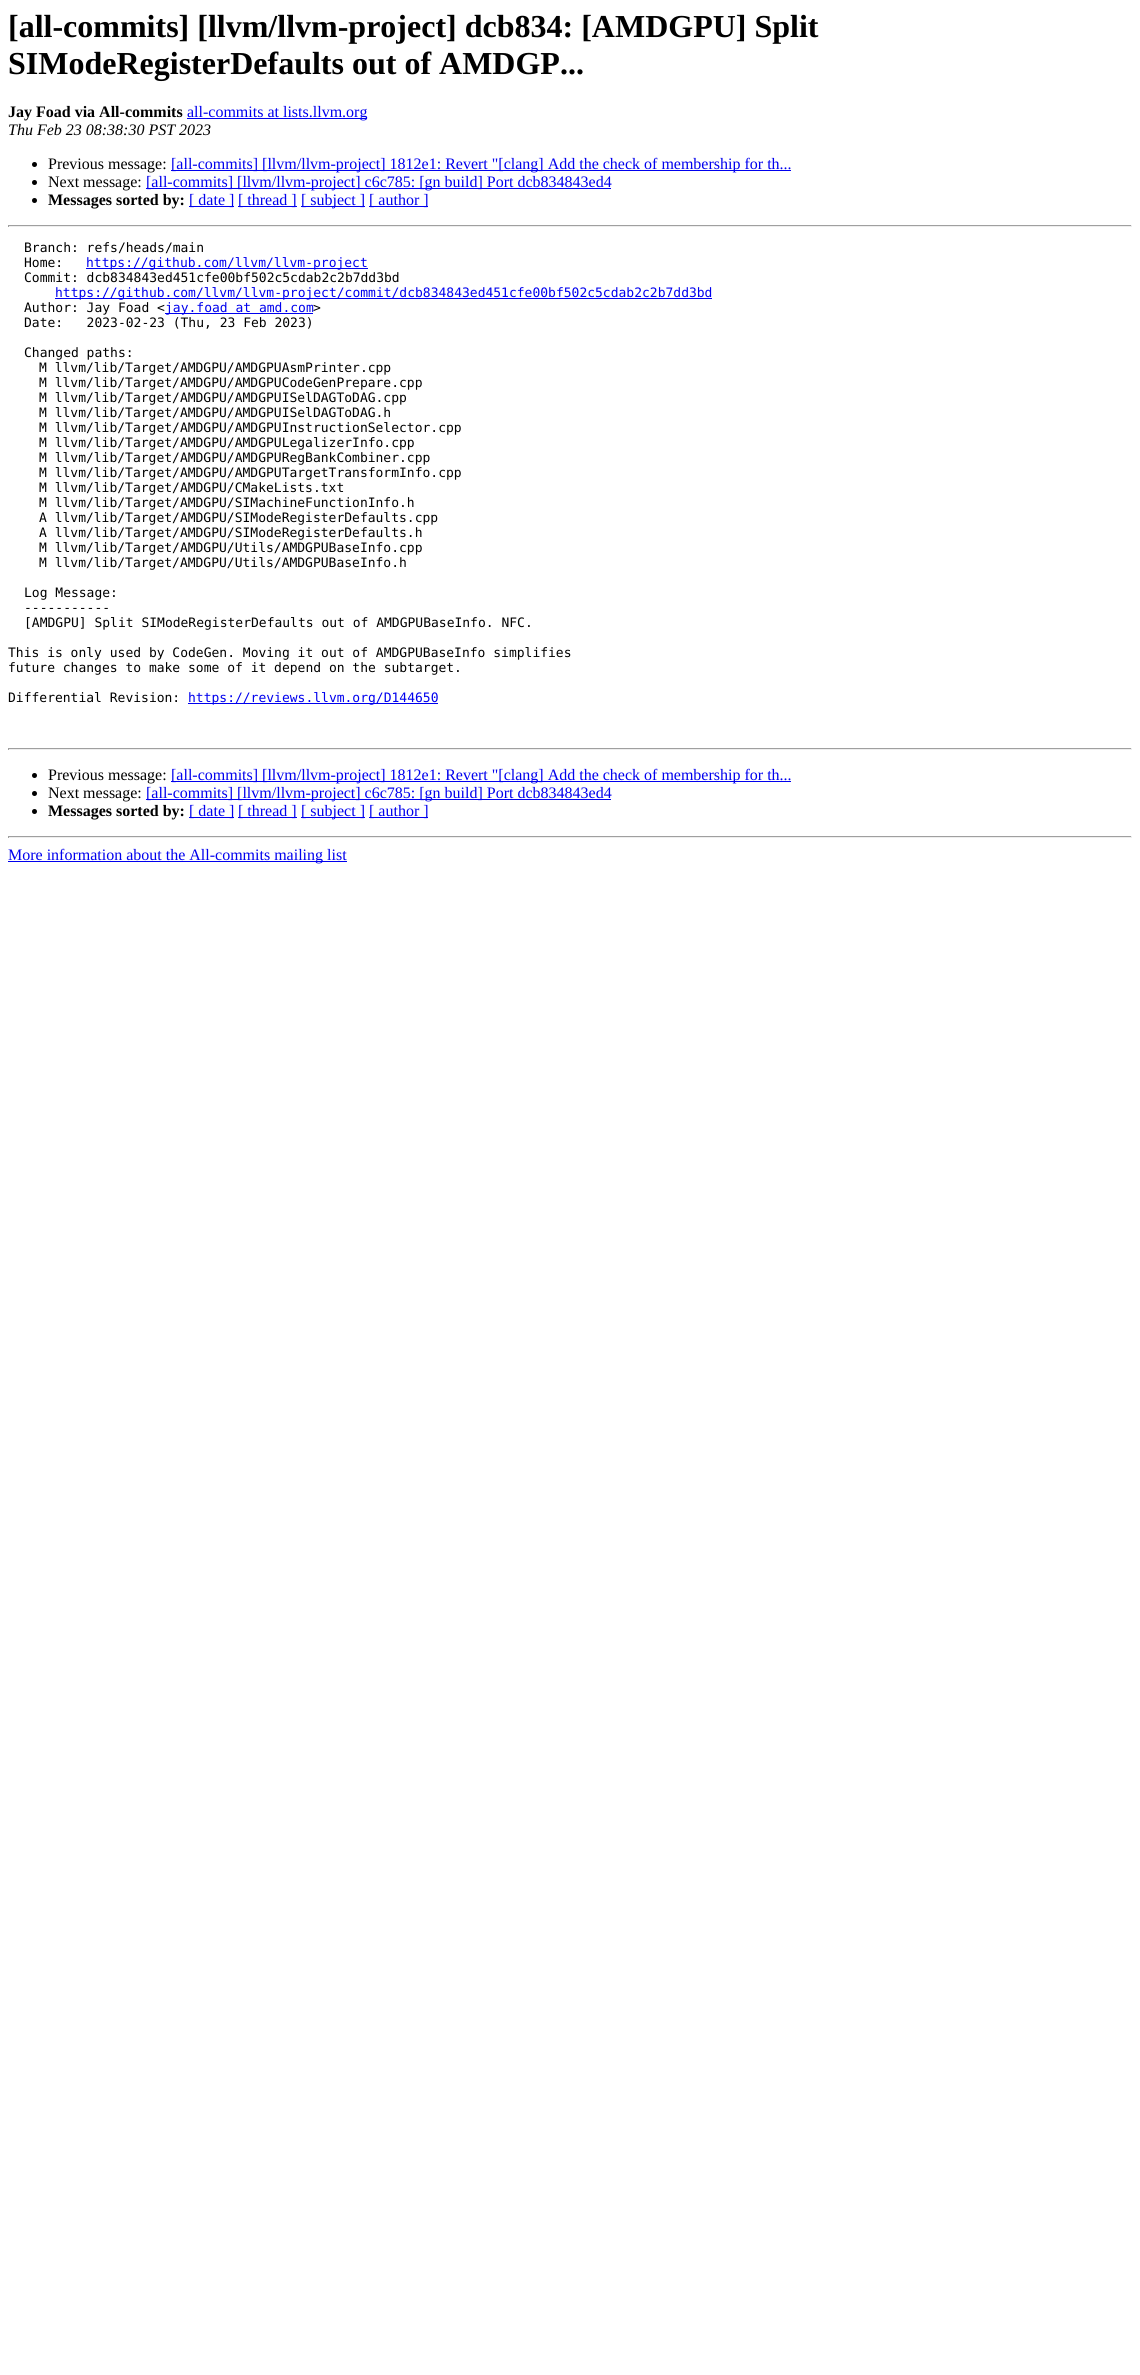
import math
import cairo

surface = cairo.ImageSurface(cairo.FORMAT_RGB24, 1140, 2375)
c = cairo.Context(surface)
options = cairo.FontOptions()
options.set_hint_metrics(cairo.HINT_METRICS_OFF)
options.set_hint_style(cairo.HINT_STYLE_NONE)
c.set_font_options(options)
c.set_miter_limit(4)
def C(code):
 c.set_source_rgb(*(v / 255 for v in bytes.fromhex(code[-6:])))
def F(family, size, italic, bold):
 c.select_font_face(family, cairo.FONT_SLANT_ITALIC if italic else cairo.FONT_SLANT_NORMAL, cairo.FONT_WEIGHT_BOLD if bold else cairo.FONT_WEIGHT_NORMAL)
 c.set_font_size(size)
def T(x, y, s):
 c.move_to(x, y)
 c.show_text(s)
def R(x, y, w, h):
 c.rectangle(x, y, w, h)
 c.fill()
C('ffffff')
c.paint()
F('Liberation Serif',32,0,1)
C('000000')
T(8,37,'[all-commits] [llvm/llvm-project] dcb834: [AMDGPU] Split')
T(8,74,'SIModeRegisterDefaults out of AMDGP...')
F('Liberation Serif',16,0,1)
T(8,117,'Jay Foad via All-commits')
C('0000ee')
R(187,118,180,1)
F('Liberation Serif',16,0,0)
T(187,117,'all-commits at lists.llvm.org')
F('Liberation Serif',16,1,0)
C('000000')
T(8,135,'Thu Feb 23 08:38:30 PST 2023')
c.new_path()
c.arc(34.5,164.5,2.5,0,2 * math.pi)
c.fill()
F('Liberation Serif',16,0,0)
T(48,169,'Previous message:')
C('0000ee')
R(171,170,620,1)
T(171,169,'[all-commits] [llvm/llvm-project] 1812e1: Revert "[clang] Add the check of membership for th...')
C('000000')
c.new_path()
c.arc(34.5,182.5,2.5,0,2 * math.pi)
c.fill()
T(48,187,'Next message:')
C('0000ee')
R(146,188,465,1)
T(146,187,'[all-commits] [llvm/llvm-project] c6c785: [gn build] Port dcb834843ed4')
C('000000')
c.new_path()
c.arc(34.5,200.5,2.5,0,2 * math.pi)
c.fill()
F('Liberation Serif',16,0,1)
T(48,205,'Messages sorted by:')
C('0000ee')
R(189,206,45,1)
F('Liberation Serif',16,0,0)
T(189,205,'[ date ]')
R(238,206,59,1)
T(238,205,'[ thread ]')
R(301,206,64,1)
T(301,205,'[ subject ]')
R(369,206,59,1)
T(369,205,'[ author ]')
C('9f9f9f')
R(8,225,1124,1)
C('eeeeee')
R(1131,225,1,2)
R(8,226,1124,1)
C('9f9f9f')
R(8,225,1,2)
F('DejaVu Sans Mono',13,0,0)
C('000000')
T(24,252,'Branch: refs/heads/main')
T(24,267,'Home:')
C('0000ee')
R(86,268,282,1)
T(86,267,'https://github.com/llvm/llvm-project')
C('000000')
T(24,282,'Commit: dcb834843ed451cfe00bf502c5cdab2c2b7dd3bd')
C('0000ee')
R(55,298,657,1)
T(55,297,'https://github.com/llvm/llvm-project/commit/dcb834843ed451cfe00bf502c5cdab2c2b7dd3bd')
C('000000')
T(24,312,'Author: Jay Foad <')
C('0000ee')
R(165,313,148,1)
T(165,312,'jay.foad at amd.com')
C('000000')
T(313,312,'>')
T(24,327,'Date:   2023-02-23 (Thu, 23 Feb 2023)')
T(24,357,'Changed paths:')
T(39,372,'M llvm/lib/Target/AMDGPU/AMDGPUAsmPrinter.cpp')
T(39,387,'M llvm/lib/Target/AMDGPU/AMDGPUCodeGenPrepare.cpp')
T(39,402,'M llvm/lib/Target/AMDGPU/AMDGPUISelDAGToDAG.cpp')
T(39,417,'M llvm/lib/Target/AMDGPU/AMDGPUISelDAGToDAG.h')
T(39,432,'M llvm/lib/Target/AMDGPU/AMDGPUInstructionSelector.cpp')
T(39,447,'M llvm/lib/Target/AMDGPU/AMDGPULegalizerInfo.cpp')
T(39,462,'M llvm/lib/Target/AMDGPU/AMDGPURegBankCombiner.cpp')
T(39,477,'M llvm/lib/Target/AMDGPU/AMDGPUTargetTransformInfo.cpp')
T(39,492,'M llvm/lib/Target/AMDGPU/CMakeLists.txt')
T(39,507,'M llvm/lib/Target/AMDGPU/SIMachineFunctionInfo.h')
T(39,522,'A llvm/lib/Target/AMDGPU/SIModeRegisterDefaults.cpp')
T(39,537,'A llvm/lib/Target/AMDGPU/SIModeRegisterDefaults.h')
T(39,552,'M llvm/lib/Target/AMDGPU/Utils/AMDGPUBaseInfo.cpp')
T(39,567,'M llvm/lib/Target/AMDGPU/Utils/AMDGPUBaseInfo.h')
T(24,597,'Log Message:')
T(24,612,'-----------')
T(24,627,'[AMDGPU] Split SIModeRegisterDefaults out of AMDGPUBaseInfo. NFC.')
T(8,657,'This is only used by CodeGen. Moving it out of AMDGPUBaseInfo simplifies')
T(8,672,'future changes to make some of it depend on the subtarget.')
T(8,702,'Differential Revision:')
C('0000ee')
R(188,703,250,1)
T(188,702,'https://reviews.llvm.org/D144650')
C('9f9f9f')
R(8,748,1124,1)
C('eeeeee')
R(1131,748,1,2)
R(8,749,1124,1)
C('9f9f9f')
R(8,748,1,2)
C('000000')
c.new_path()
c.arc(34.5,775.5,2.5,0,2 * math.pi)
c.fill()
F('Liberation Serif',16,0,0)
T(48,780,'Previous message:')
C('0000ee')
R(171,781,620,1)
T(171,780,'[all-commits] [llvm/llvm-project] 1812e1: Revert "[clang] Add the check of membership for th...')
C('000000')
c.new_path()
c.arc(34.5,793.5,2.5,0,2 * math.pi)
c.fill()
T(48,798,'Next message:')
C('0000ee')
R(146,799,465,1)
T(146,798,'[all-commits] [llvm/llvm-project] c6c785: [gn build] Port dcb834843ed4')
C('000000')
c.new_path()
c.arc(34.5,811.5,2.5,0,2 * math.pi)
c.fill()
F('Liberation Serif',16,0,1)
T(48,816,'Messages sorted by:')
C('0000ee')
R(189,817,45,1)
F('Liberation Serif',16,0,0)
T(189,816,'[ date ]')
R(238,817,59,1)
T(238,816,'[ thread ]')
R(301,817,64,1)
T(301,816,'[ subject ]')
R(369,817,59,1)
T(369,816,'[ author ]')
C('9f9f9f')
R(8,836,1124,1)
C('eeeeee')
R(1131,836,1,2)
R(8,837,1124,1)
C('9f9f9f')
R(8,836,1,2)
C('0000ee')
R(8,861,339,1)
T(8,860,'More information about the All-commits mailing list')
surface.write_to_png('o.png')
